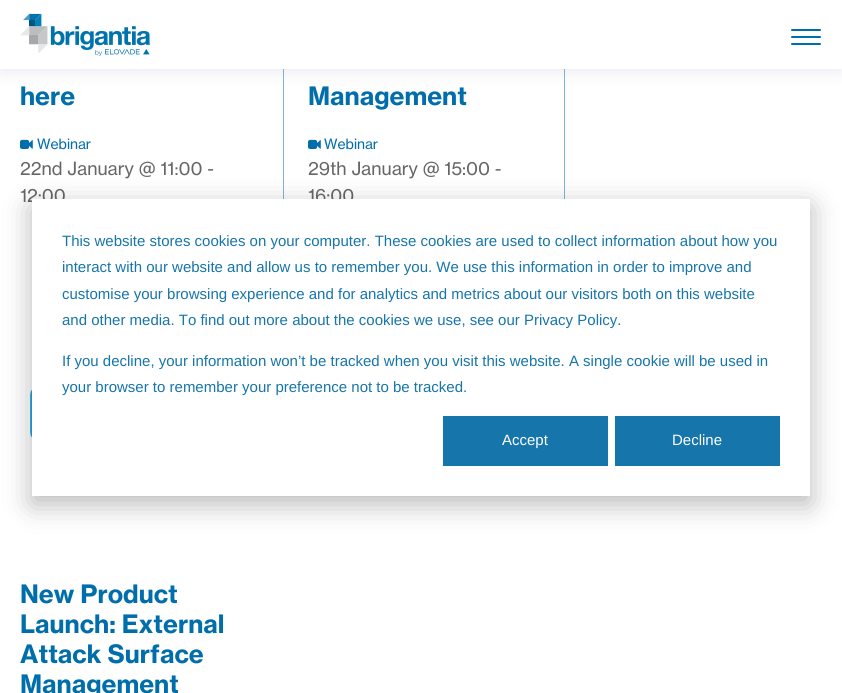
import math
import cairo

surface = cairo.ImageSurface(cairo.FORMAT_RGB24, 842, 693)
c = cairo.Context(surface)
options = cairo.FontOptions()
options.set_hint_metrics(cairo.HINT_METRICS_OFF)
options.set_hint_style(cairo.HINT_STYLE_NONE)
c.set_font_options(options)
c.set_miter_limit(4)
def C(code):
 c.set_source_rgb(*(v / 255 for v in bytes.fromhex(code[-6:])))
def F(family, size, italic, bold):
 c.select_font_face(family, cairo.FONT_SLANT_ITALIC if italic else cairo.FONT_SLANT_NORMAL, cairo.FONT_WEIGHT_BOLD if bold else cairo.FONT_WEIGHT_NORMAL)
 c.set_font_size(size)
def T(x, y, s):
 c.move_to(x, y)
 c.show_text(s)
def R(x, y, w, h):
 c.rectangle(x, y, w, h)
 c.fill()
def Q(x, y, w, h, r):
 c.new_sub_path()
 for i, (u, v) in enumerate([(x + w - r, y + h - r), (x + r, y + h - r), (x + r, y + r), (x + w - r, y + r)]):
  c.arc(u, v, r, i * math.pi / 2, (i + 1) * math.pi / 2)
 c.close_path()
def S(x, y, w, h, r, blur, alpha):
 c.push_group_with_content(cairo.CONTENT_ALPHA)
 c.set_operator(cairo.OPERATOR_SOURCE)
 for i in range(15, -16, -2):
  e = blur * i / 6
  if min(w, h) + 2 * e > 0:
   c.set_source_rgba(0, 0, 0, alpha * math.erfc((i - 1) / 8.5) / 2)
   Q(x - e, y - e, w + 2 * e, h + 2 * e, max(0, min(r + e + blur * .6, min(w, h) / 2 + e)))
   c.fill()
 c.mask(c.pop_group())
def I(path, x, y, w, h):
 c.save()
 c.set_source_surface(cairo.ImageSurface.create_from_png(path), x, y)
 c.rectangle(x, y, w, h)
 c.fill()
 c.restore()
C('ffffff')
c.paint()
C('7fb6d5')
R(283,69,1,130)
R(564,69,1,130)
C('382166')
S(0,3,842,69,0,7.5,.1)
C('ffffff')
R(0,0,842,69)
I('1.png',20,13,130,43)
C('006eab')
Q(791,36,30,2,1)
c.fill()
Q(791,29,30,2,1)
c.fill()
Q(791,43,30,2,1)
c.fill()
F('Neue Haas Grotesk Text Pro',25,0,1)
T(20,105,'here')
I('2.png',20,139,13,10)
F('Neue Haas Grotesk Text Pro',14,0,0)
T(37,149,'Webinar')
F('Neue Haas Grotesk Text Pro',18,0,0)
C('666666')
T(20,175,'22nd January @ 11:00 -')
T(20,202,'12:00')
F('Neue Haas Grotesk Text Pro',25,0,1)
C('006eab')
T(308,105,'Management')
I('2.png',308,139,13,10)
F('Neue Haas Grotesk Text Pro',14,0,0)
T(324,149,'Webinar')
F('Neue Haas Grotesk Text Pro',18,0,0)
C('666666')
T(308,175,'29th January @ 15:00 -')
T(308,202,'16:00')
I('3.png',30,383,2,62)
F('Neue Haas Grotesk Text Pro',25,0,1)
C('006eab')
T(20,603,'New Product')
T(20,633,'Launch: External')
T(20,663,'Attack Surface')
T(20,693,'Management')
C('000000')
S(32,207,778,297,0,14,.28)
C('ffffff')
R(32,199,778,297)
F('Liberation Sans',15,0,0)
C('1675aa')
T(62,246,'This website stores cookies on your computer. These cookies are used to collect information about how you')
T(62,272,'interact with our website and allow us to remember you. We use this information in order to improve and')
T(62,299,'customise your browsing experience and for analytics and metrics about our visitors both on this website')
T(62,325,'and other media. To find out more about the cookies we use, see our Privacy Policy.')
T(62,366,'If you decline, your information won’t be tracked when you visit this website. A single cookie will be used in')
T(62,392,'your browser to remember your preference not to be tracked.')
R(443,416,165,50)
C('ffffff')
T(502,445,'Accept')
C('1675aa')
R(615,416,165,50)
C('ffffff')
T(672,445,'Decline')
surface.write_to_png('o.png')
